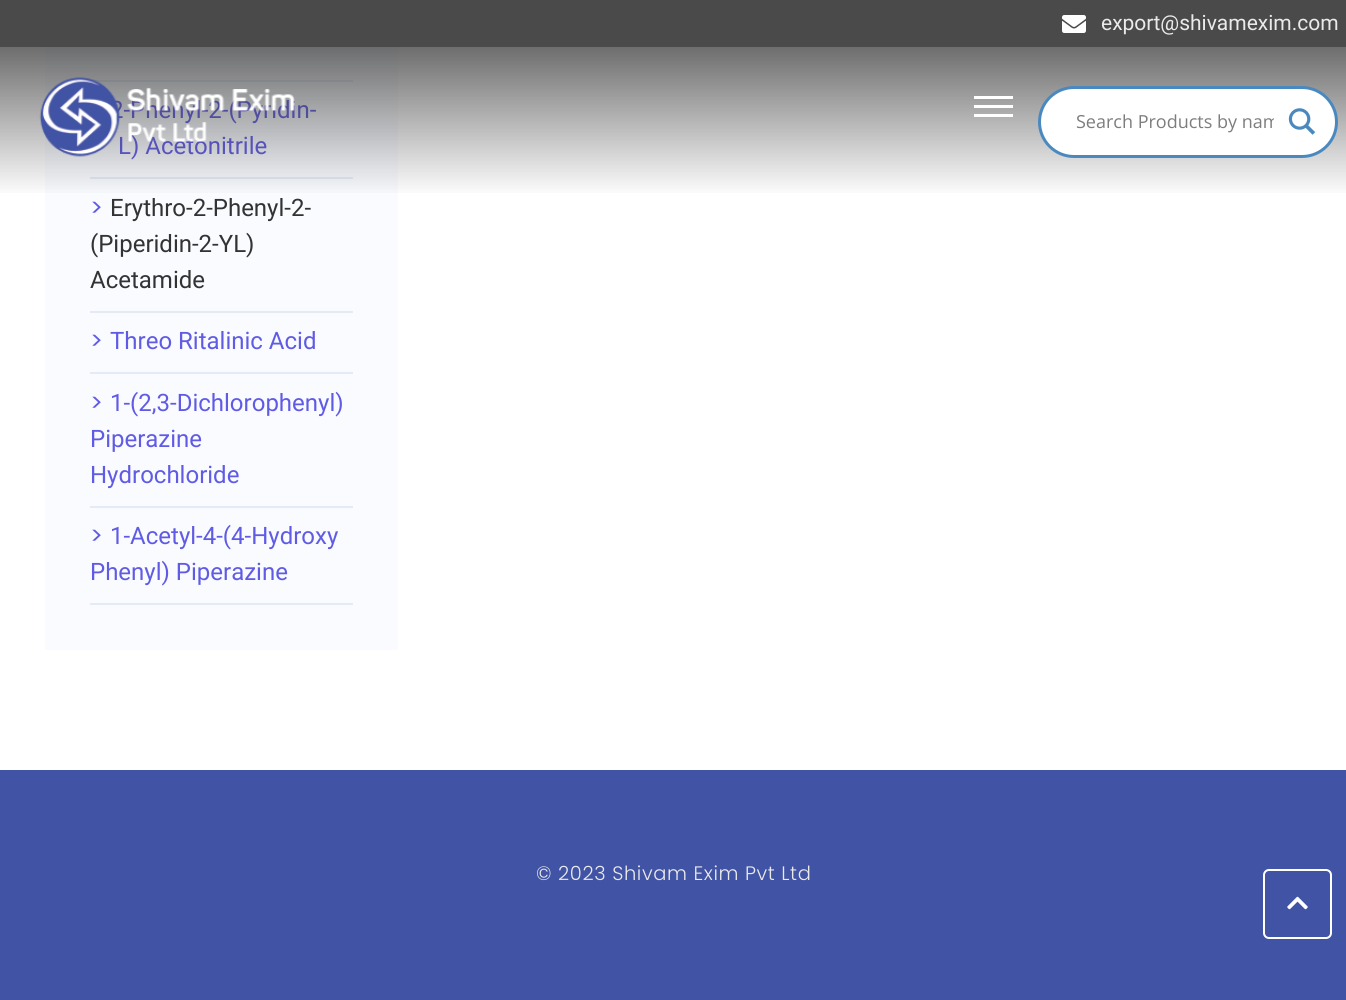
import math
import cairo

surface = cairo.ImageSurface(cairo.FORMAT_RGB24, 1346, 1000)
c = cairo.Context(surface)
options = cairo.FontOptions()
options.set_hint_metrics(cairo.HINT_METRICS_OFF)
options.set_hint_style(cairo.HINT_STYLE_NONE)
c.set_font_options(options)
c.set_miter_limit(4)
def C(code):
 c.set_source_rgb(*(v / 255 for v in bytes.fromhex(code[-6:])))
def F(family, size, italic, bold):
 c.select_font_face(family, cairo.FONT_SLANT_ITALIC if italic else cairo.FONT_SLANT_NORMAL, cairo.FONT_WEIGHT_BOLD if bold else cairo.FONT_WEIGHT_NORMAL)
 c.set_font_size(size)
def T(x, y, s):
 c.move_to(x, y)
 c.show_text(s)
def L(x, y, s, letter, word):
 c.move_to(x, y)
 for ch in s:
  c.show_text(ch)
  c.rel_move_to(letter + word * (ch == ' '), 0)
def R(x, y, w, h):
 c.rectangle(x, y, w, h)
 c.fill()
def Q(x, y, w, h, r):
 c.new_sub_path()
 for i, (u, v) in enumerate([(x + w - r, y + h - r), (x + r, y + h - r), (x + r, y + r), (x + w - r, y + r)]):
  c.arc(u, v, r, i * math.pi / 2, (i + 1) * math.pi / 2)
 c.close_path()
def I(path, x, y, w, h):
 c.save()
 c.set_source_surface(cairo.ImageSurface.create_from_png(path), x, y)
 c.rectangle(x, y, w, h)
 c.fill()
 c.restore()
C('ffffff')
c.paint()
C('4a4a4a')
R(0,0,1346,47)
I('1.png',1062,15,24,18)
F('Roboto',21,0,0)
C('eaeaea')
T(1101,30,'export@shivamexim.com')
C('f9fbff')
R(45,47,353,603)
C('e4ebf5')
R(90,80,263,2)
R(90,177,263,2)
F('Roboto',24,0,0)
C('605be5')
T(110,118,'2-Phenyl-2-(Pyridin-')
T(118,154,'L) Acetonitrile')
gradient = cairo.LinearGradient(674,46,674,197)
gradient.add_color_stop_rgba(0,0.224,0.224,0.224,.74)
gradient.add_color_stop_rgba(1,0.224,0.224,0.224,0)
c.set_source(gradient)
R(0,47,1346,146)
I('2.png',39,77,256,80)
C('ffffff')
R(974,96,39,3)
R(974,105,39,3)
R(974,114,39,3)
Q(1039.5,87.5,297,69,34.5)
c.fill_preserve()
C('4a89bf')
c.set_line_width(3)
c.stroke()
c.save()
c.rectangle(1076,110,198,25)
c.clip()
F('Open Sans',18,0,0)
C('7d7d7d')
T(1076,128,'Search Products by nam')
c.restore()
I('3.png',1288,108,28,27)
C('e4ebf5')
R(90,311,263,2)
F('Poppins',24,0,0)
C('605be5')
T(90,216,'>')
F('Roboto',24,0,0)
C('333333')
T(110,216,'Erythro-2-Phenyl-2-')
T(90,252,'(Piperidin-2-YL)')
T(90,288,'Acetamide')
C('e4ebf5')
R(90,372,263,2)
F('Poppins',24,0,0)
C('605be5')
T(90,349,'>')
F('Roboto',24,0,0)
T(110,349,'Threo Ritalinic Acid')
C('e4ebf5')
R(90,506,263,2)
F('Poppins',24,0,0)
C('605be5')
T(90,411,'>')
F('Roboto',24,0,0)
T(110,411,'1-(2,3-Dichlorophenyl)')
T(90,447,'Piperazine')
T(90,483,'Hydrochloride')
C('e4ebf5')
R(90,603,263,2)
F('Poppins',24,0,0)
C('605be5')
T(90,544,'>')
F('Roboto',24,0,0)
T(110,544,'1-Acetyl-4-(4-Hydroxy')
T(90,580,'Phenyl) Piperazine')
C('4153a4')
R(0,770,1346,230)
F('Poppins Light',19.5,0,0)
C('eaeaea')
L(536,880,'© 2023 Shivam Exim Pvt Ltd',.6,0)
Q(1264,870,67,68,5)
C('ffffff')
c.set_line_width(2)
c.stroke()
I('4.png',1287,896,21,14)
surface.write_to_png('o.png')
